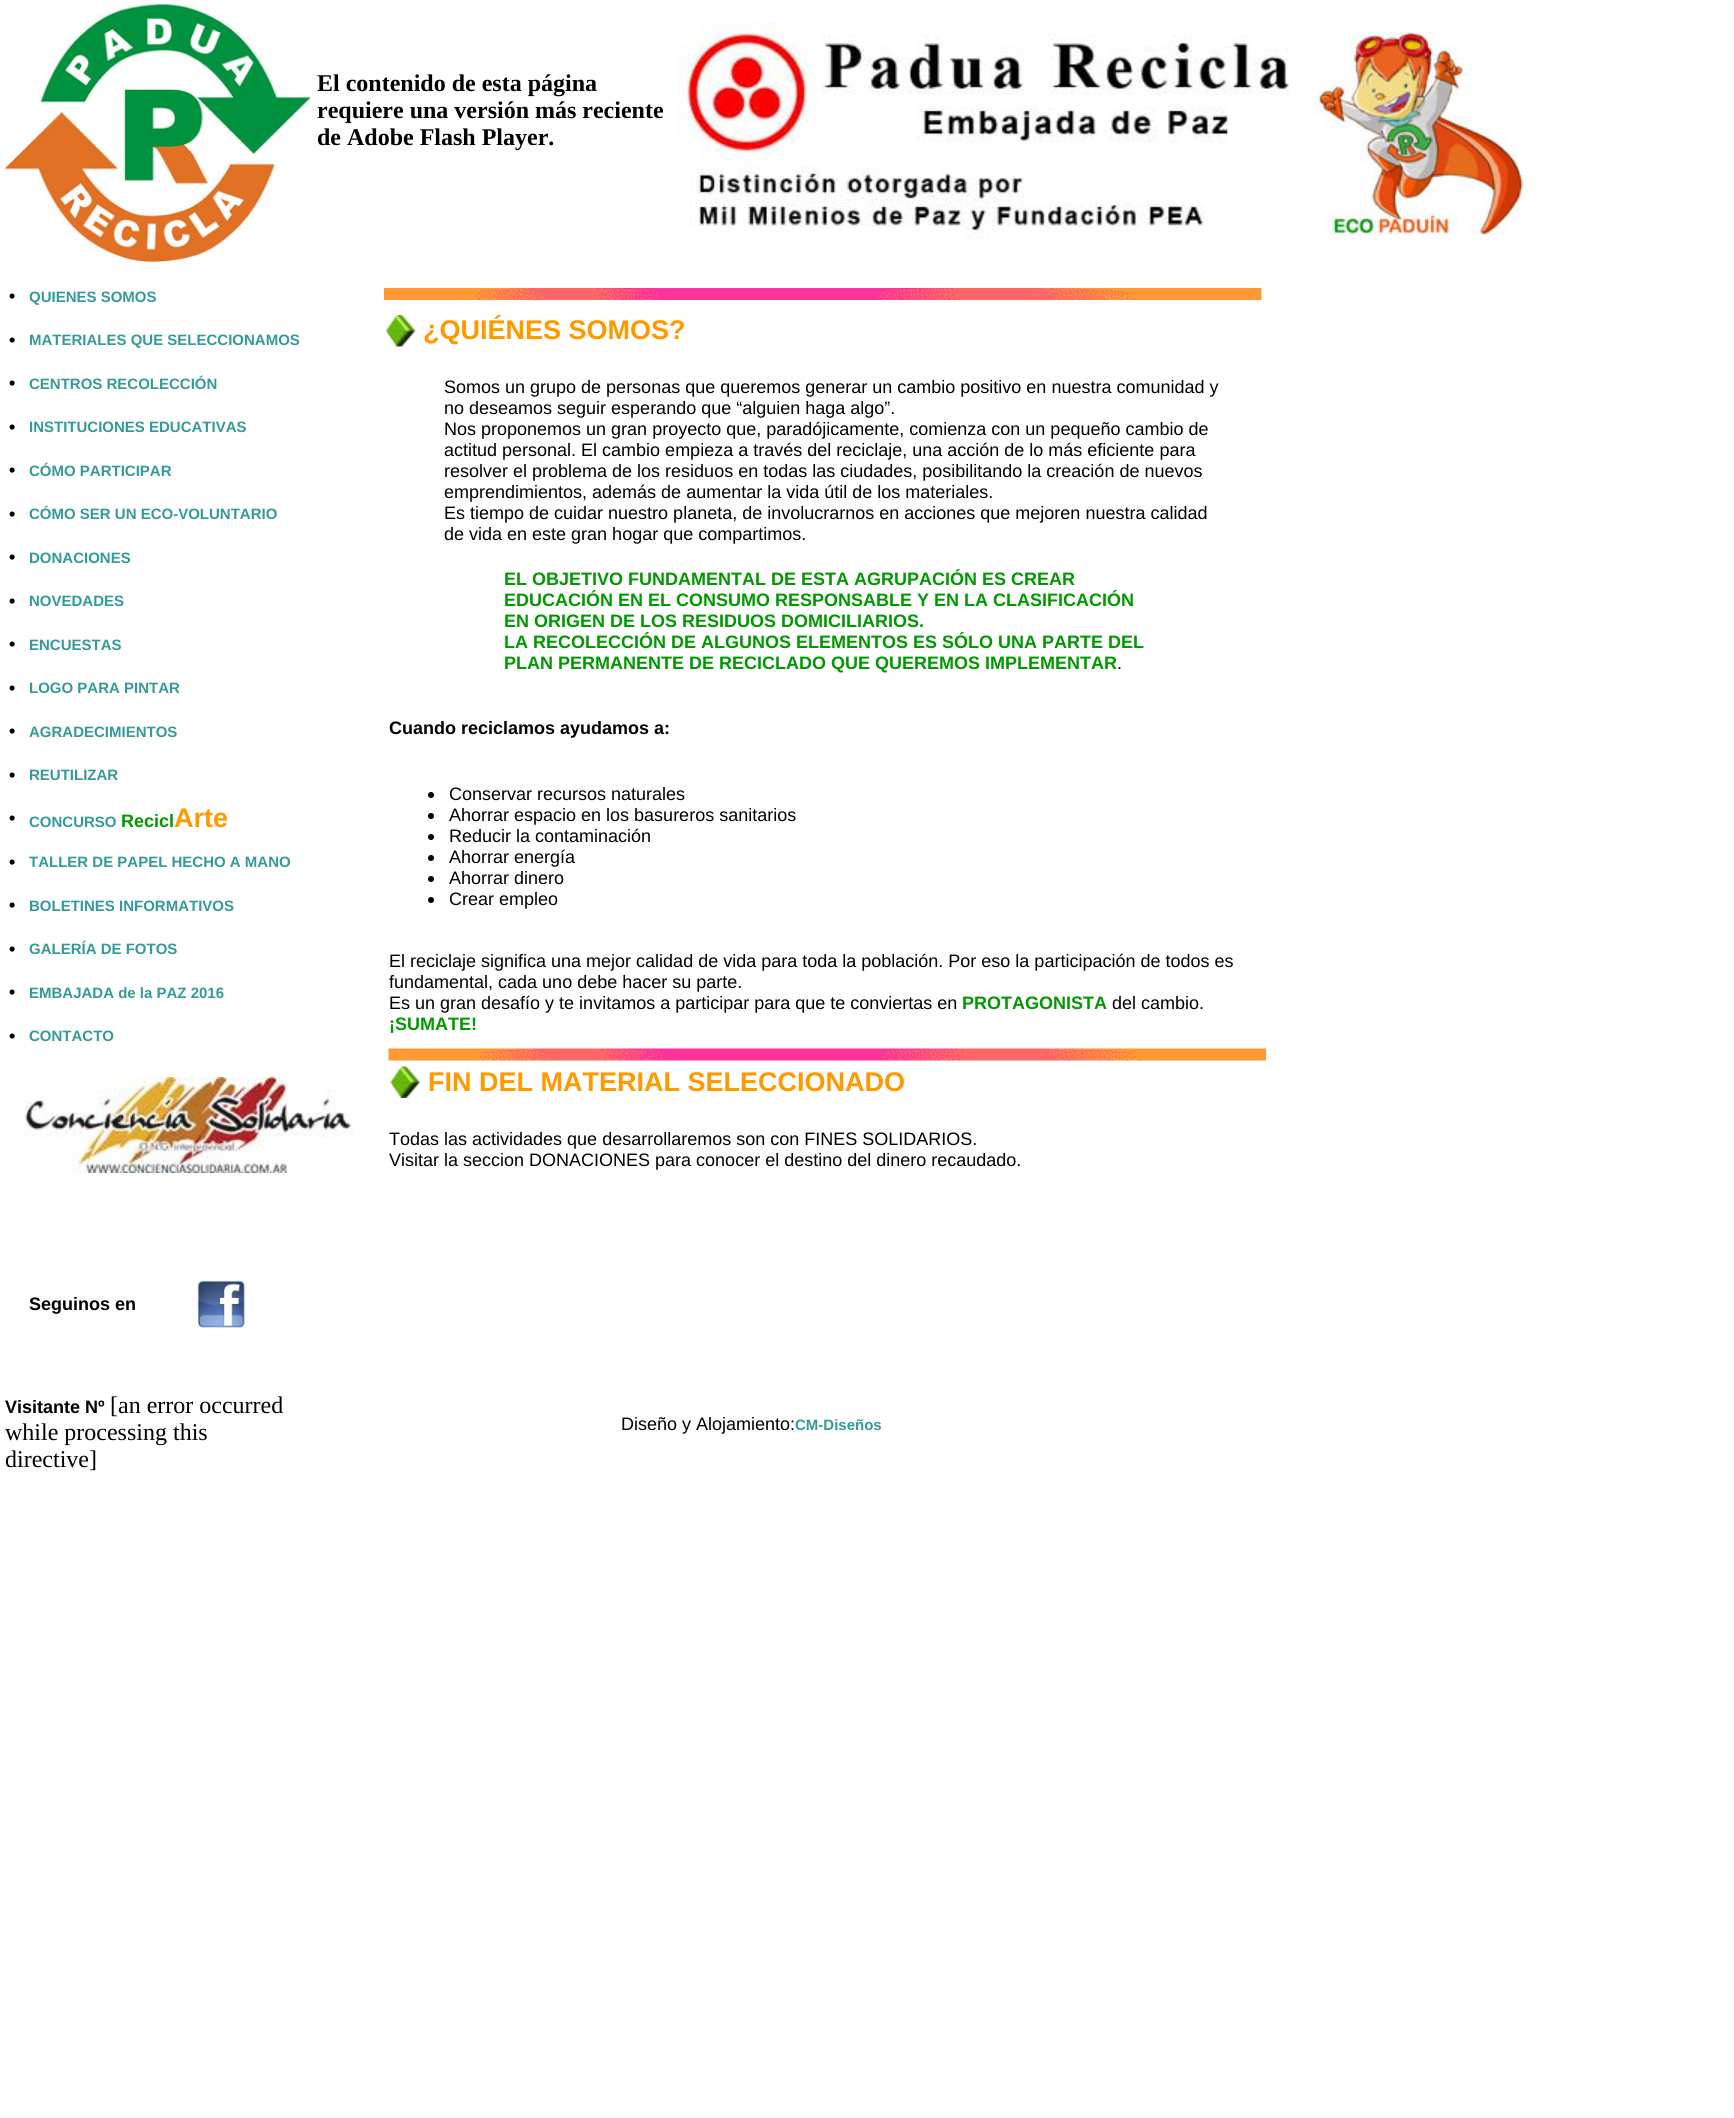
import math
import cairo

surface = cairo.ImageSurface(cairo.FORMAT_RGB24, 1734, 2118)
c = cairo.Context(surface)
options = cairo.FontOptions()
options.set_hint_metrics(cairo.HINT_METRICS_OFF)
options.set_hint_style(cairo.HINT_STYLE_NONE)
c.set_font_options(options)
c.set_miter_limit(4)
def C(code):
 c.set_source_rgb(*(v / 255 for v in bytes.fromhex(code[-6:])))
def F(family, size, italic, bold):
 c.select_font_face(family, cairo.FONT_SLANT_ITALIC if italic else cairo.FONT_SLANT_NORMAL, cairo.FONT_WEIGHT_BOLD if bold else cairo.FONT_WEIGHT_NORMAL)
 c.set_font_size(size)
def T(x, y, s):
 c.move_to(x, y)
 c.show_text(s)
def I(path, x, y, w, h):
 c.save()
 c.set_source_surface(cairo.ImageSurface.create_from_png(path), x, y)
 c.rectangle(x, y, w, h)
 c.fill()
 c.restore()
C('ffffff')
c.paint()
I('1.png',4,4,307,260)
F('Liberation Serif',24,0,1)
C('000000')
T(317,91,'El contenido de esta página')
T(317,118,'requiere una versión más reciente')
T(317,145,'de Adobe Flash Player.')
I('2.png',676,22,613,217)
I('3.png',1314,31,210,205)
F('Liberation Sans',18,0,1)
T(9,302,'•')
F('Liberation Sans',15,0,1)
C('339999')
T(29,302,'QUIENES SOMOS')
F('Liberation Sans',18,0,1)
C('000000')
T(9,346,'•')
F('Liberation Sans',15,0,1)
C('339999')
T(29,345,'MATERIALES QUE SELECCIONAMOS')
F('Liberation Sans',18,0,1)
C('000000')
T(9,389,'•')
F('Liberation Sans',15,0,1)
C('339999')
T(29,389,'CENTROS RECOLECCIÓN')
F('Liberation Sans',18,0,1)
C('000000')
T(9,433,'•')
F('Liberation Sans',15,0,1)
C('339999')
T(29,432,'INSTITUCIONES EDUCATIVAS')
F('Liberation Sans',18,0,1)
C('000000')
T(9,476,'•')
F('Liberation Sans',15,0,1)
C('339999')
T(29,476,'CÓMO PARTICIPAR')
F('Liberation Sans',18,0,1)
C('000000')
T(9,520,'•')
F('Liberation Sans',15,0,1)
C('339999')
T(29,519,'CÓMO SER UN ECO-VOLUNTARIO')
F('Liberation Sans',18,0,1)
C('000000')
T(9,563,'•')
F('Liberation Sans',15,0,1)
C('339999')
T(29,563,'DONACIONES')
F('Liberation Sans',18,0,1)
C('000000')
T(9,607,'•')
F('Liberation Sans',15,0,1)
C('339999')
T(29,606,'NOVEDADES')
F('Liberation Sans',18,0,1)
C('000000')
T(9,650,'•')
F('Liberation Sans',15,0,1)
C('339999')
T(29,650,'ENCUESTAS')
F('Liberation Sans',18,0,1)
C('000000')
T(9,694,'•')
F('Liberation Sans',15,0,1)
C('339999')
T(29,693,'LOGO PARA PINTAR')
F('Liberation Sans',18,0,1)
C('000000')
T(9,737,'•')
F('Liberation Sans',15,0,1)
C('339999')
T(29,737,'AGRADECIMIENTOS')
F('Liberation Sans',18,0,1)
C('000000')
T(9,781,'•')
F('Liberation Sans',15,0,1)
C('339999')
T(29,780,'REUTILIZAR')
F('Liberation Sans',18,0,1)
C('000000')
T(9,824,'•')
F('Liberation Sans',15,0,1)
C('339999')
T(29,827,'CONCURSO')
F('Liberation Sans',18,0,1)
C('009900')
T(121,827,'Recicl')
F('Liberation Sans',27,0,1)
C('ff9900')
T(174,827,'Arte')
F('Liberation Sans',18,0,1)
C('000000')
T(9,868,'•')
F('Liberation Sans',15,0,1)
C('339999')
T(29,867,'TALLER DE PAPEL HECHO A MANO')
F('Liberation Sans',18,0,1)
C('000000')
T(9,911,'•')
F('Liberation Sans',15,0,1)
C('339999')
T(29,911,'BOLETINES INFORMATIVOS')
F('Liberation Sans',18,0,1)
C('000000')
T(9,955,'•')
F('Liberation Sans',15,0,1)
C('339999')
T(29,954,'GALERÍA DE FOTOS')
F('Liberation Sans',18,0,1)
C('000000')
T(9,998,'•')
F('Liberation Sans',15,0,1)
C('339999')
T(29,998,'EMBAJADA de la PAZ 2016')
F('Liberation Sans',18,0,1)
C('000000')
T(9,1042,'•')
F('Liberation Sans',15,0,1)
C('339999')
T(29,1041,'CONTACTO')
I('4.png',24,1077,329,96)
F('Liberation Sans',18,0,1)
C('000000')
T(29,1310,'Seguinos en')
I('5.png',196,1279,50,50)
I('6.png',384,288,878,12)
I('7.png',385,315,31,32)
F('Liberation Sans',27,0,1)
C('ff9900')
T(423,339,'¿QUIÉNES SOMOS?')
F('Liberation Sans',18,0,0)
C('000000')
T(444,393,'Somos un grupo de personas que queremos generar un cambio positivo en nuestra comunidad y')
T(444,414,'no deseamos seguir esperando que “alguien haga algo”.')
T(444,435,'Nos proponemos un gran proyecto que, paradójicamente, comienza con un pequeño cambio de')
T(444,456,'actitud personal. El cambio empieza a través del reciclaje, una acción de lo más eficiente para')
T(444,477,'resolver el problema de los residuos en todas las ciudades, posibilitando la creación de nuevos')
T(444,498,'emprendimientos, además de aumentar la vida útil de los materiales.')
T(444,519,'Es tiempo de cuidar nuestro planeta, de involucrarnos en acciones que mejoren nuestra calidad')
T(444,540,'de vida en este gran hogar que compartimos.')
F('Liberation Sans',18,0,1)
C('009900')
T(504,585,'EL OBJETIVO FUNDAMENTAL DE ESTA AGRUPACIÓN ES CREAR')
T(504,606,'EDUCACIÓN EN EL CONSUMO RESPONSABLE Y EN LA CLASIFICACIÓN')
T(504,627,'EN ORIGEN DE LOS RESIDUOS DOMICILIARIOS.')
T(504,648,'LA RECOLECCIÓN DE ALGUNOS ELEMENTOS ES SÓLO UNA PARTE DEL')
T(504,669,'PLAN PERMANENTE DE RECICLADO QUE QUEREMOS IMPLEMENTAR')
F('Liberation Sans',18,0,0)
C('000000')
T(1117,669,'.')
F('Liberation Sans',18,0,1)
T(389,734,'Cuando reciclamos ayudamos a:')
c.new_path()
c.arc(431,795,3,0,2 * math.pi)
c.fill()
F('Liberation Sans',18,0,0)
T(449,800,'Conservar recursos naturales')
c.new_path()
c.arc(431,816,3,0,2 * math.pi)
c.fill()
T(449,821,'Ahorrar espacio en los basureros sanitarios')
c.new_path()
c.arc(431,837,3,0,2 * math.pi)
c.fill()
T(449,842,'Reducir la contaminación')
c.new_path()
c.arc(431,858,3,0,2 * math.pi)
c.fill()
T(449,863,'Ahorrar energía')
c.new_path()
c.arc(431,879,3,0,2 * math.pi)
c.fill()
T(449,884,'Ahorrar dinero')
c.new_path()
c.arc(431,900,3,0,2 * math.pi)
c.fill()
T(449,905,'Crear empleo')
T(389,967,'El reciclaje significa una mejor calidad de vida para toda la población. Por eso la participación de todos es')
T(389,988,'fundamental, cada uno debe hacer su parte.')
T(389,1009,'Es un gran desafío y te invitamos a participar para que te conviertas en')
F('Liberation Sans',18,0,1)
C('009900')
T(962,1009,'PROTAGONISTA')
F('Liberation Sans',18,0,0)
C('000000')
T(1112,1009,'del cambio.')
F('Liberation Sans',18,0,1)
C('009900')
T(389,1030,'¡SUMATE!')
I('8.png',388,1048,878,13)
I('9.png',389,1066,31,32)
F('Liberation Sans',27,0,1)
C('ff9900')
T(428,1091,'FIN DEL MATERIAL SELECCIONADO')
F('Liberation Sans',18,0,0)
C('000000')
T(389,1145,'Todas las actividades que desarrollaremos son con FINES SOLIDARIOS.')
T(389,1166,'Visitar la seccion DONACIONES para conocer el destino del dinero recaudado.')
F('Liberation Sans',18,0,1)
T(5,1413,'Visitante Nº')
F('Liberation Serif',24,0,0)
T(110,1413,'[an error occurred')
T(5,1440,'while processing this')
T(5,1467,'directive]')
F('Liberation Sans',18,0,0)
T(621,1430,'Diseño y Alojamiento:')
F('Liberation Sans',15,0,1)
C('339999')
T(795,1430,'CM-Diseños')
surface.write_to_png('o.png')
